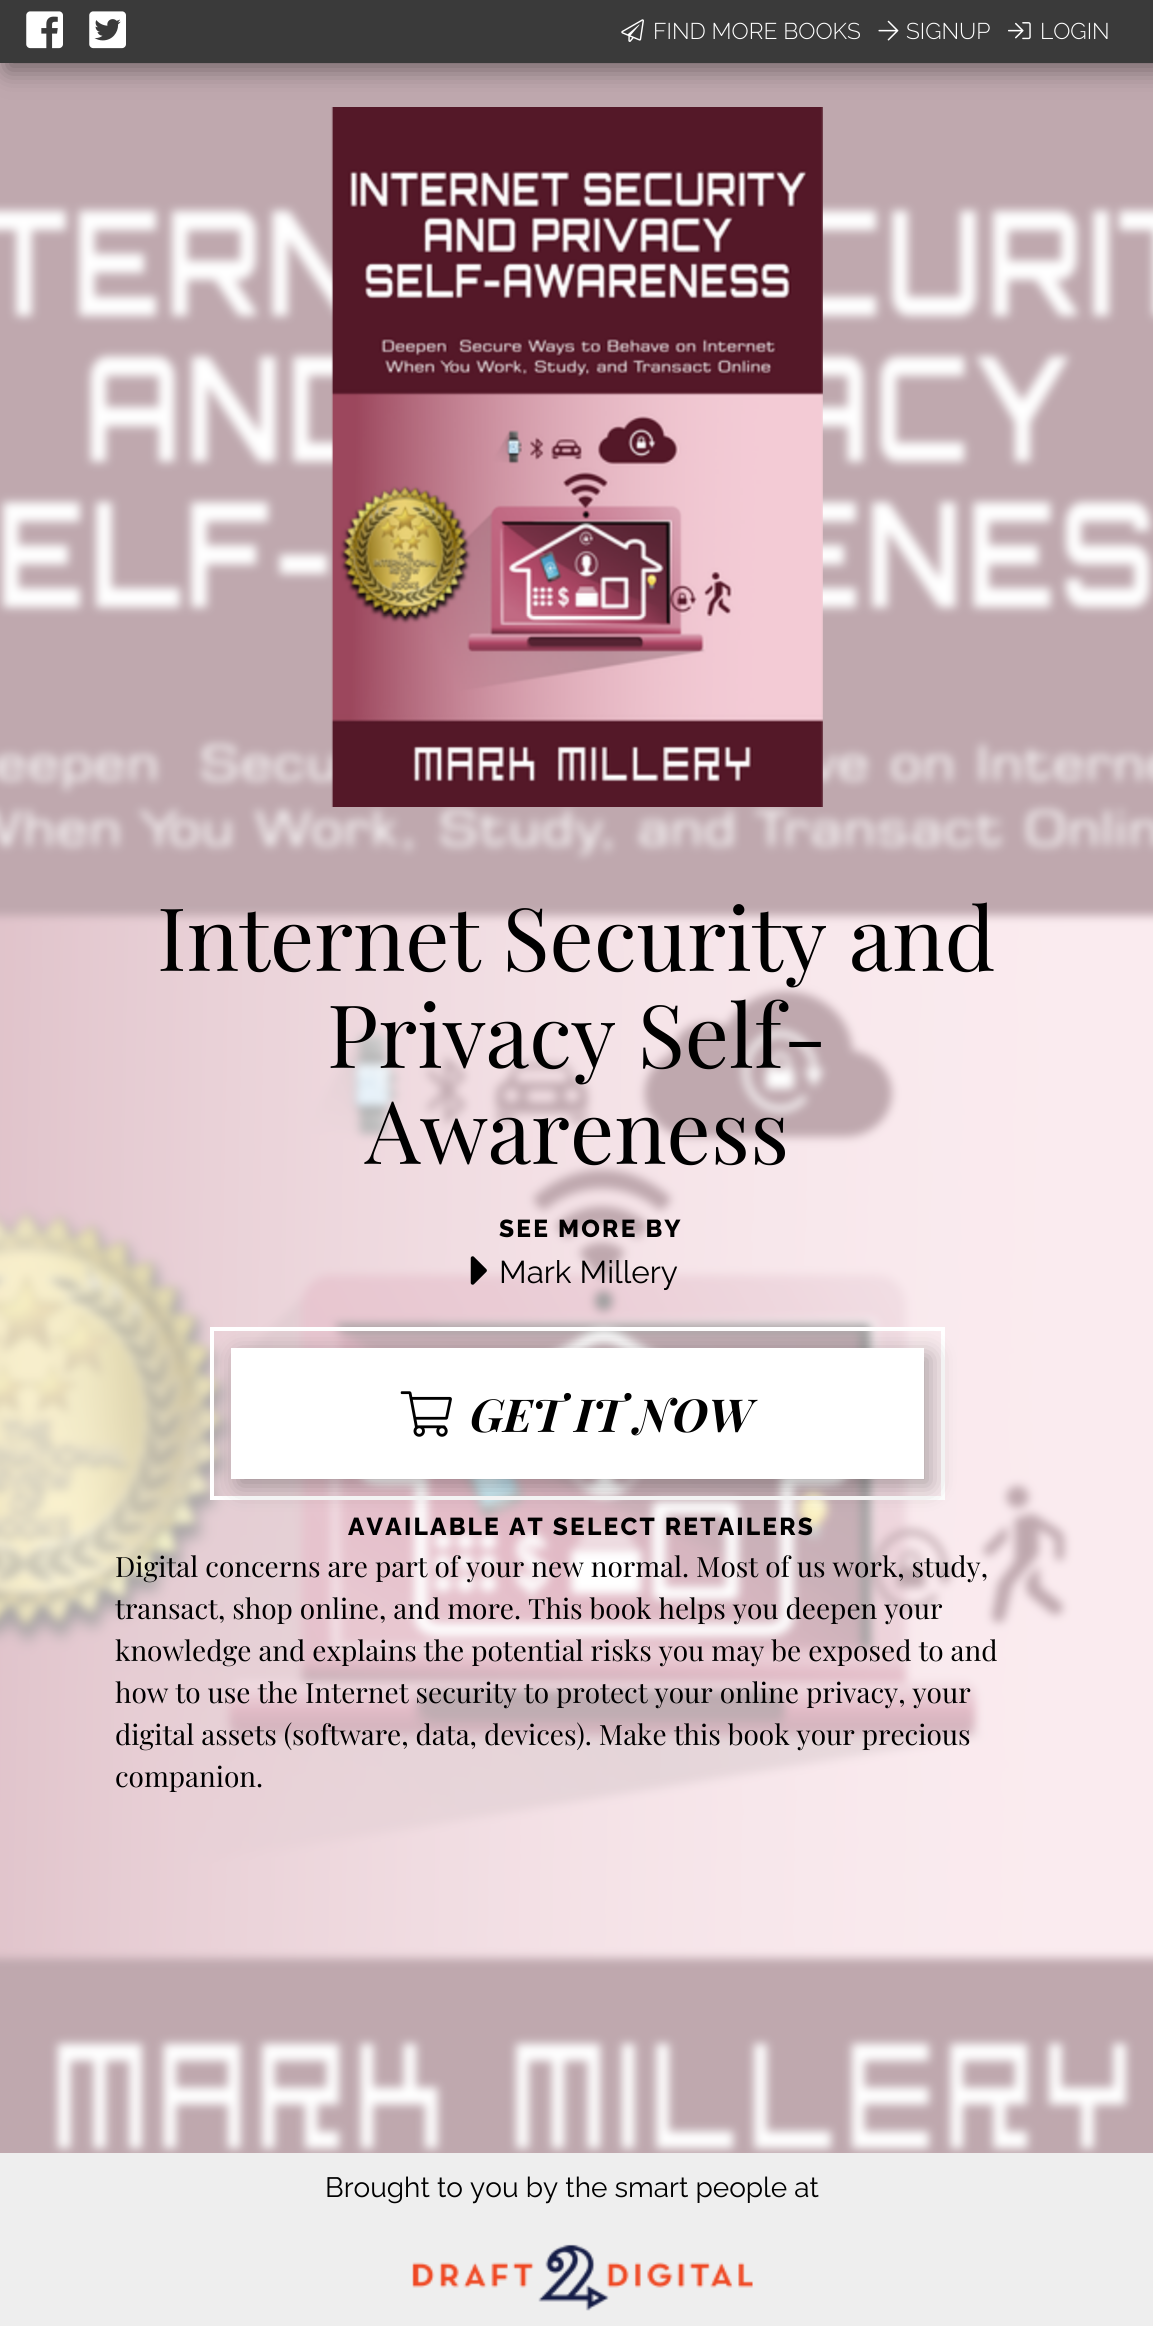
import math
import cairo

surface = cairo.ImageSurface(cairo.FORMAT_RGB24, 1153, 2326)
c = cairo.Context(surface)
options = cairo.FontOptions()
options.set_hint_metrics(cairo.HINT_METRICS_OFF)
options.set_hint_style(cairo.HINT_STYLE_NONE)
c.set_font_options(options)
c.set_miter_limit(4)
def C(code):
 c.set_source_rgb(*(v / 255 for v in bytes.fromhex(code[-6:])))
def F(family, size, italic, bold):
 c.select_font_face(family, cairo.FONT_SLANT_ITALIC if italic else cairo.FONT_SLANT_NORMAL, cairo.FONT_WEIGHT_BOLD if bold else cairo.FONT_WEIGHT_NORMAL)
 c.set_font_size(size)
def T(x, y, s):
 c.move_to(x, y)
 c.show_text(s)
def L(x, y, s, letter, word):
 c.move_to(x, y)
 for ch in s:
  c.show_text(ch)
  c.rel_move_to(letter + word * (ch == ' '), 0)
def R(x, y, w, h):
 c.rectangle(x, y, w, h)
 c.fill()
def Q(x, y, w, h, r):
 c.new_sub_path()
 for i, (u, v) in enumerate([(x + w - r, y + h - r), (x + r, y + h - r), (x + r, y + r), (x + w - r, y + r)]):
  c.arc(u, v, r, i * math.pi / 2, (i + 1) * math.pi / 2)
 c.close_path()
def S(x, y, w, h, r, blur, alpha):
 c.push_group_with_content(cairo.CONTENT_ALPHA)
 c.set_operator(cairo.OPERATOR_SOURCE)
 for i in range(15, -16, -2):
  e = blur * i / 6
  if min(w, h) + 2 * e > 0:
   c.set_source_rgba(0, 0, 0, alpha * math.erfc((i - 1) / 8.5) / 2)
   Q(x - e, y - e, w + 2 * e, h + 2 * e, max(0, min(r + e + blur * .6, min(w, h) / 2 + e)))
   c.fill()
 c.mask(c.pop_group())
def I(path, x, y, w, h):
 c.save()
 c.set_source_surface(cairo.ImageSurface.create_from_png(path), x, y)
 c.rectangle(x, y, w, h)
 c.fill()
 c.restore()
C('ffffff')
c.paint()
I('1.png',0,63,1153,2090)
C('000000')
S(7,7,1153,63,0,12,.4)
C('3a3a3a')
R(0,0,1153,63)
I('2.png',26,11,37,38)
I('3.png',89,11,37,38)
I('4.png',621,19,23,23)
F('Raleway Light',22.75,0,0)
C('ffffff')
T(653,39,'FIND MORE BOOKS')
I('5.png',878,20,21,21)
T(906,39,'SIGNUP')
I('6.png',1008,22,23,18)
T(1040,39,'LOGIN')
I('7.png',331,107,492,700)
F('Playfair Display',87.5,0,0)
C('000000')
T(157,971,'Internet Security and')
T(327,1068,'Privacy Self-')
T(365,1164,'Awareness')
I('8.png',470,1256,17,29)
F('Raleway ExtraBold',24.5,0,0)
L(499,1237,'SEE MORE BY',2.2,0)
F('Raleway',31.5,0,0)
T(499,1283,'Mark Millery')
c.rectangle(212,1329,731,169)
C('ffffff')
c.set_line_width(4)
c.stroke()
C('000000')
S(238,1355,693,131,0,12,.3)
C('ffffff')
R(231,1348,693,131)
I('9.png',400,1391,52,46)
F('Playfair Display',45.5,1,1)
C('000000')
T(470,1432,'GET IT NOW')
F('Raleway ExtraBold',24.5,0,0)
L(348,1535,'AVAILABLE AT SELECT RETAILERS',2.2,0)
F('Playfair Display',28,0,0)
T(115,1577,'Digital concerns are part of your new normal. Most of us work, study,')
T(115,1619,'transact, shop online, and more. This book helps you deepen your')
T(115,1661,'knowledge and explains the potential risks you may be exposed to and')
T(115,1703,'how to use the Internet security to protect your online privacy, your')
T(115,1745,'digital assets (software, data, devices). Make this book your precious')
T(115,1787,'companion.')
C('eeeeee')
R(0,2153,1153,173)
F('Raleway',28,0,0)
C('000000')
T(325,2197,'Brought to you by the smart people at')
I('10.png',412,2244,341,67)
surface.write_to_png('o.png')
